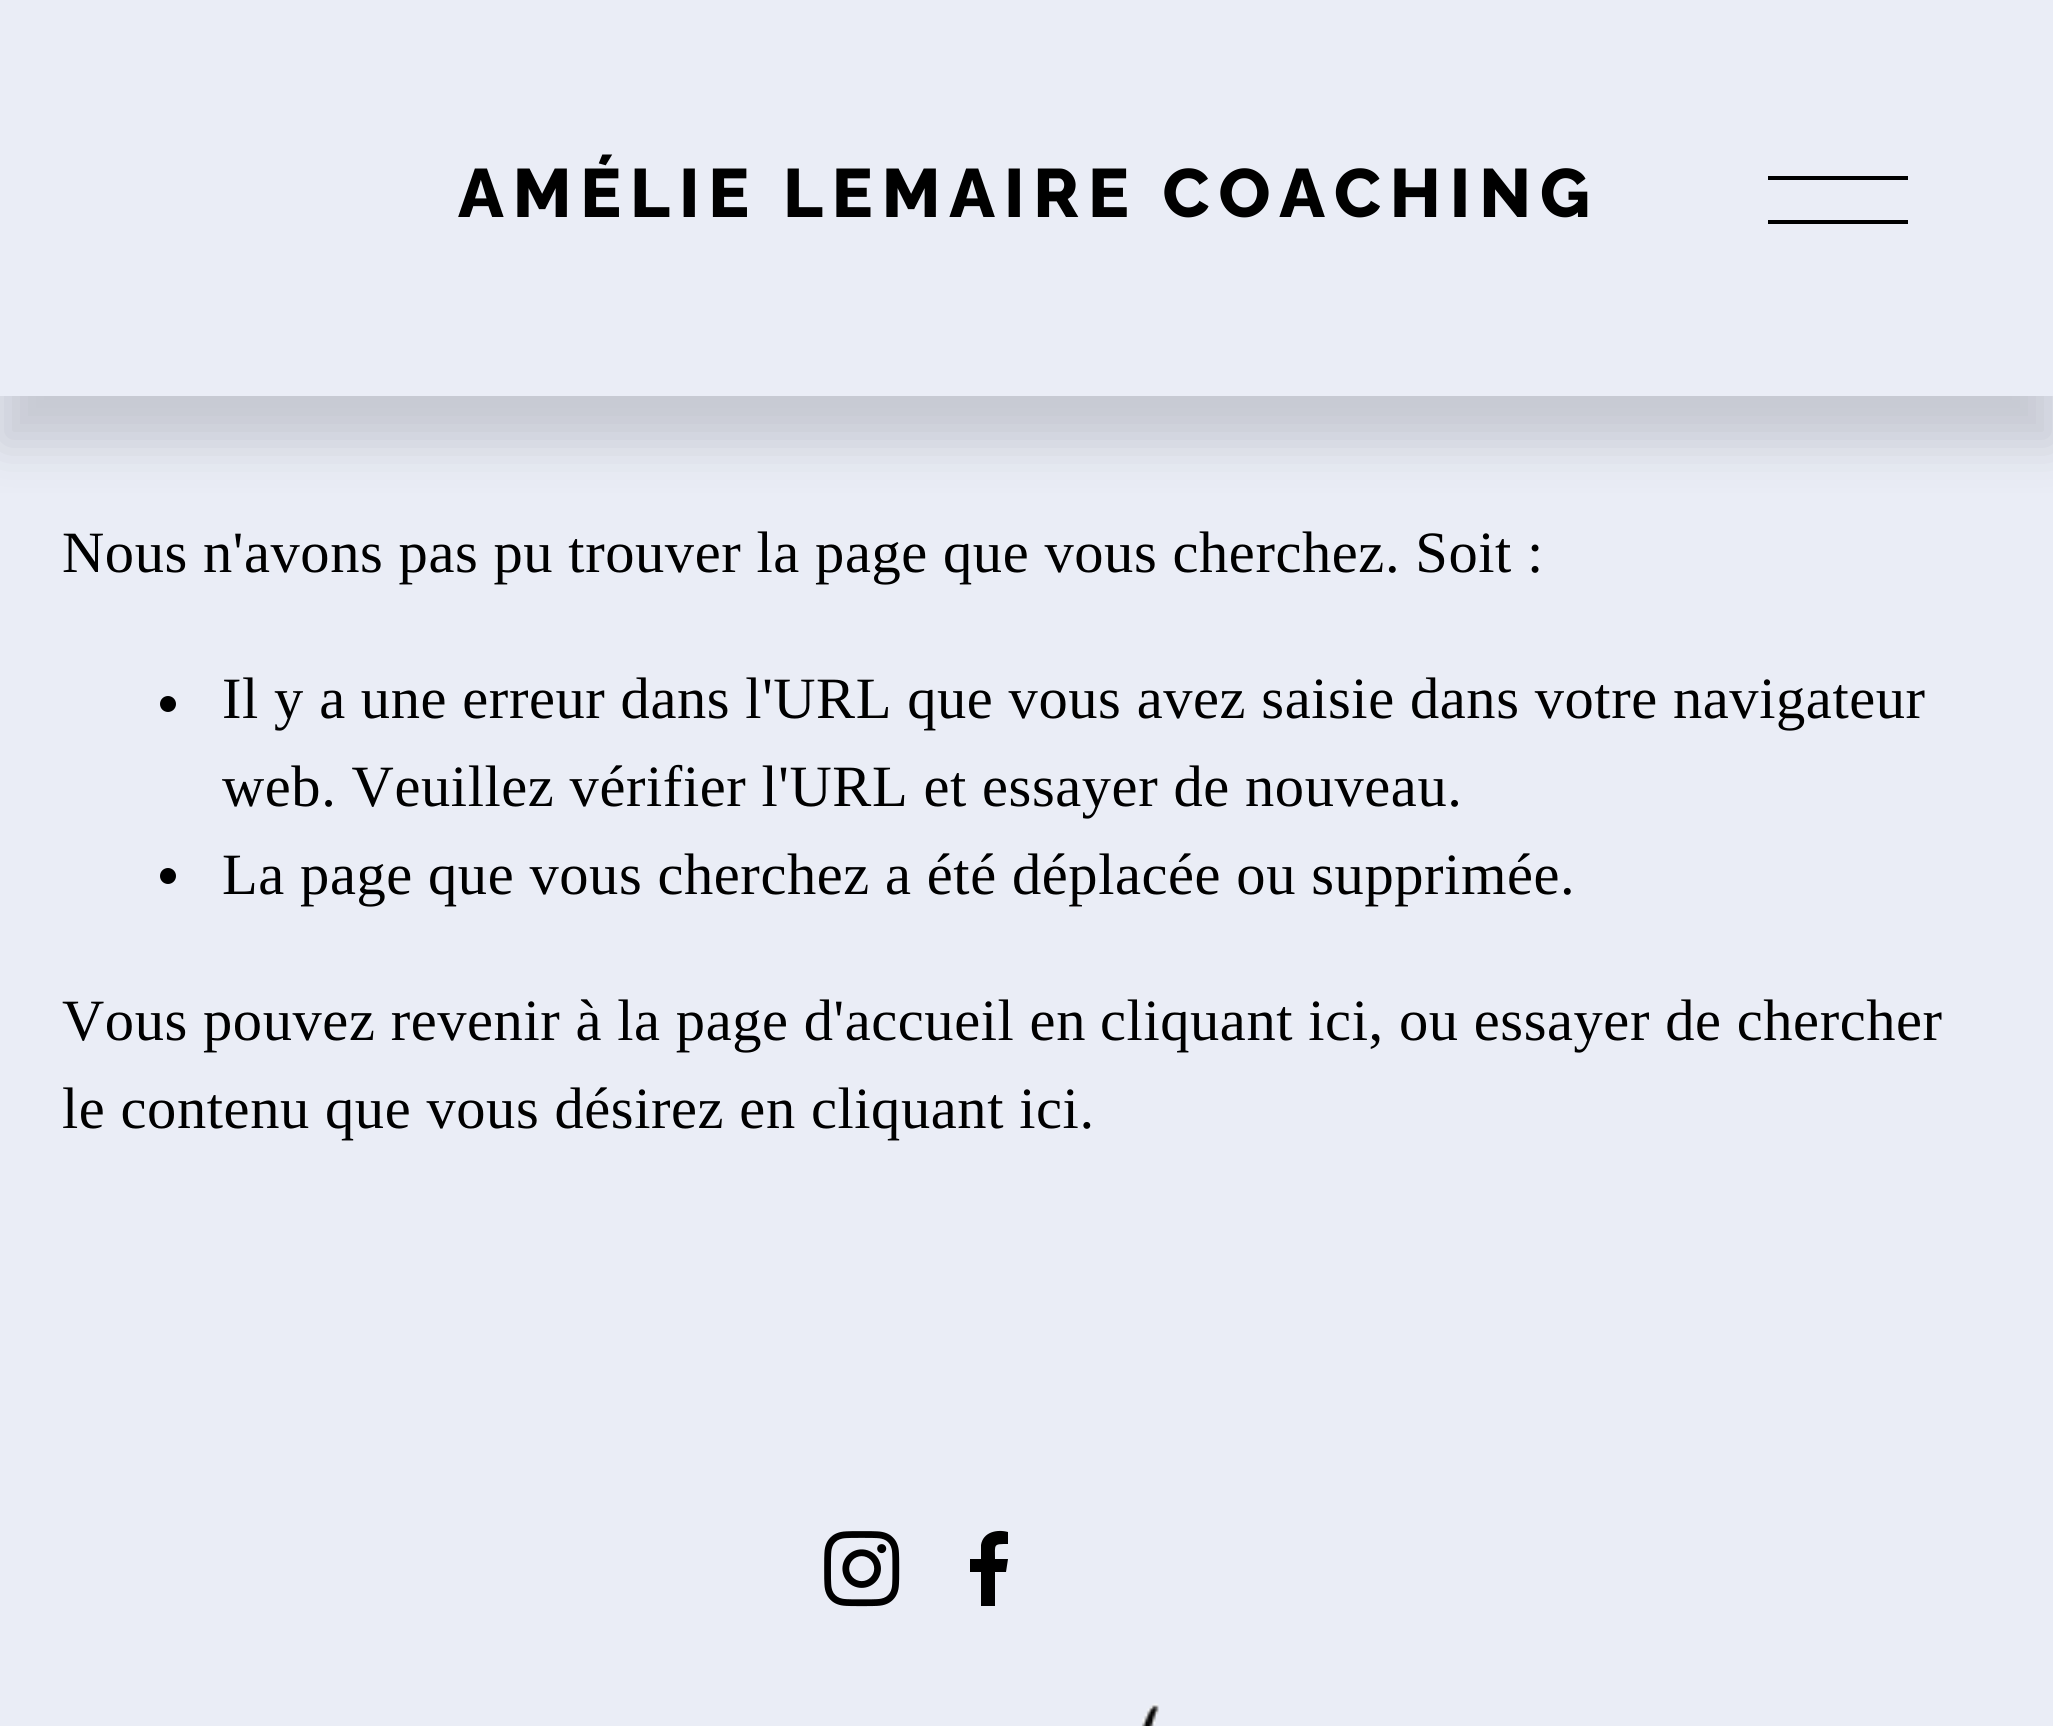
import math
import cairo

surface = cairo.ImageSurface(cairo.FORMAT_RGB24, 2053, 1726)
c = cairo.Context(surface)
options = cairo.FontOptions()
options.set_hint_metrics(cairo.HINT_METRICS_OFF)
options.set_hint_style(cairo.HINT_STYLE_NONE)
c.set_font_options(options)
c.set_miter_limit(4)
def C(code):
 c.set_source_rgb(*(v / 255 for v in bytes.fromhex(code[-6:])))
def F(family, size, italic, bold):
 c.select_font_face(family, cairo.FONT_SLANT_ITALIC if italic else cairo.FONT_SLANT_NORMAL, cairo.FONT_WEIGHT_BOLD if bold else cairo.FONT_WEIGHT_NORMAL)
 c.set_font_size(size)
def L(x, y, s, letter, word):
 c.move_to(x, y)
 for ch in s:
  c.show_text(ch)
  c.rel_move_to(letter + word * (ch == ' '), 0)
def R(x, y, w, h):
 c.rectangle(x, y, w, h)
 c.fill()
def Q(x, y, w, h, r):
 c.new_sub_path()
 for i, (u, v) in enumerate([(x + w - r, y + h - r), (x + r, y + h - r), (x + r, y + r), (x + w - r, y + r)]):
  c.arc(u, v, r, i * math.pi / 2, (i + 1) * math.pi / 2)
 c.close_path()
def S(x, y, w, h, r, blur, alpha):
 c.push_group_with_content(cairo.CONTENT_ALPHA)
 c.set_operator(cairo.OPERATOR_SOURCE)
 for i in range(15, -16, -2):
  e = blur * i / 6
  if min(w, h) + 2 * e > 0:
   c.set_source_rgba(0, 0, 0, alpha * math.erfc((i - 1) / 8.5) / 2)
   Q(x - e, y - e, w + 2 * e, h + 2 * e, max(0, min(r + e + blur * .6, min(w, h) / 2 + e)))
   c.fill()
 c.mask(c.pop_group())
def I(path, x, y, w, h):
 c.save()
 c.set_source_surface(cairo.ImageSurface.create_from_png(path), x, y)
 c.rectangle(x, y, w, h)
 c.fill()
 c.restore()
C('eaedf6')
c.paint()
c.save()
c.rectangle(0,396,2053,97)
c.clip()
C('c6c9d2')
S(0,48,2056,396,0,24,1)
c.restore()
F('Raleway ExtraBold',68.3,0,0)
C('000000')
L(458,217,'AMÉLIE LEMAIRE COACHING',8.9,0)
R(1768,176,140,4)
R(1768,220,140,4)
F('Liberation Serif',58.5,0,0)
L(62,572,'Nous n\'avons pas pu trouver la page que vous cherchez. Soit :',.58,0)
c.new_path()
c.arc(168,704,8,0,2 * math.pi)
c.fill()
L(222,718,'Il y a une erreur dans l\'URL que vous avez saisie dans votre navigateur',.58,0)
L(222,806,'web. Veuillez vérifier l\'URL et essayer de nouveau.',.58,0)
c.new_path()
c.arc(168,876,8,0,2 * math.pi)
c.fill()
L(222,894,'La page que vous cherchez a été déplacée ou supprimée.',.58,0)
L(62,1040,'Vous pouvez revenir à la page d\'accueil en',.58,0)
L(1100,1040,'cliquant ici, ou essayer de chercher',.58,0)
L(62,1128,'le contenu que vous désirez en cliquant ici.',.58,0)
I('1.png',824,1531,76,76)
c.new_path()
c.move_to(995,1606)
c.line_to(995,1572)
c.line_to(1006,1572)
c.line_to(1008,1559)
c.line_to(995,1559)
c.curve_to(995,1544,993,1544,1008,1544)
c.line_to(1008,1532)
c.curve_to(997,1529,983,1532,981,1545)
c.line_to(981,1559)
c.line_to(970,1559)
c.line_to(970,1572)
c.line_to(981,1572)
c.line_to(981,1606)
c.close_path()
c.fill()
I('2.png',1141,1703,18,23)
surface.write_to_png('o.png')
